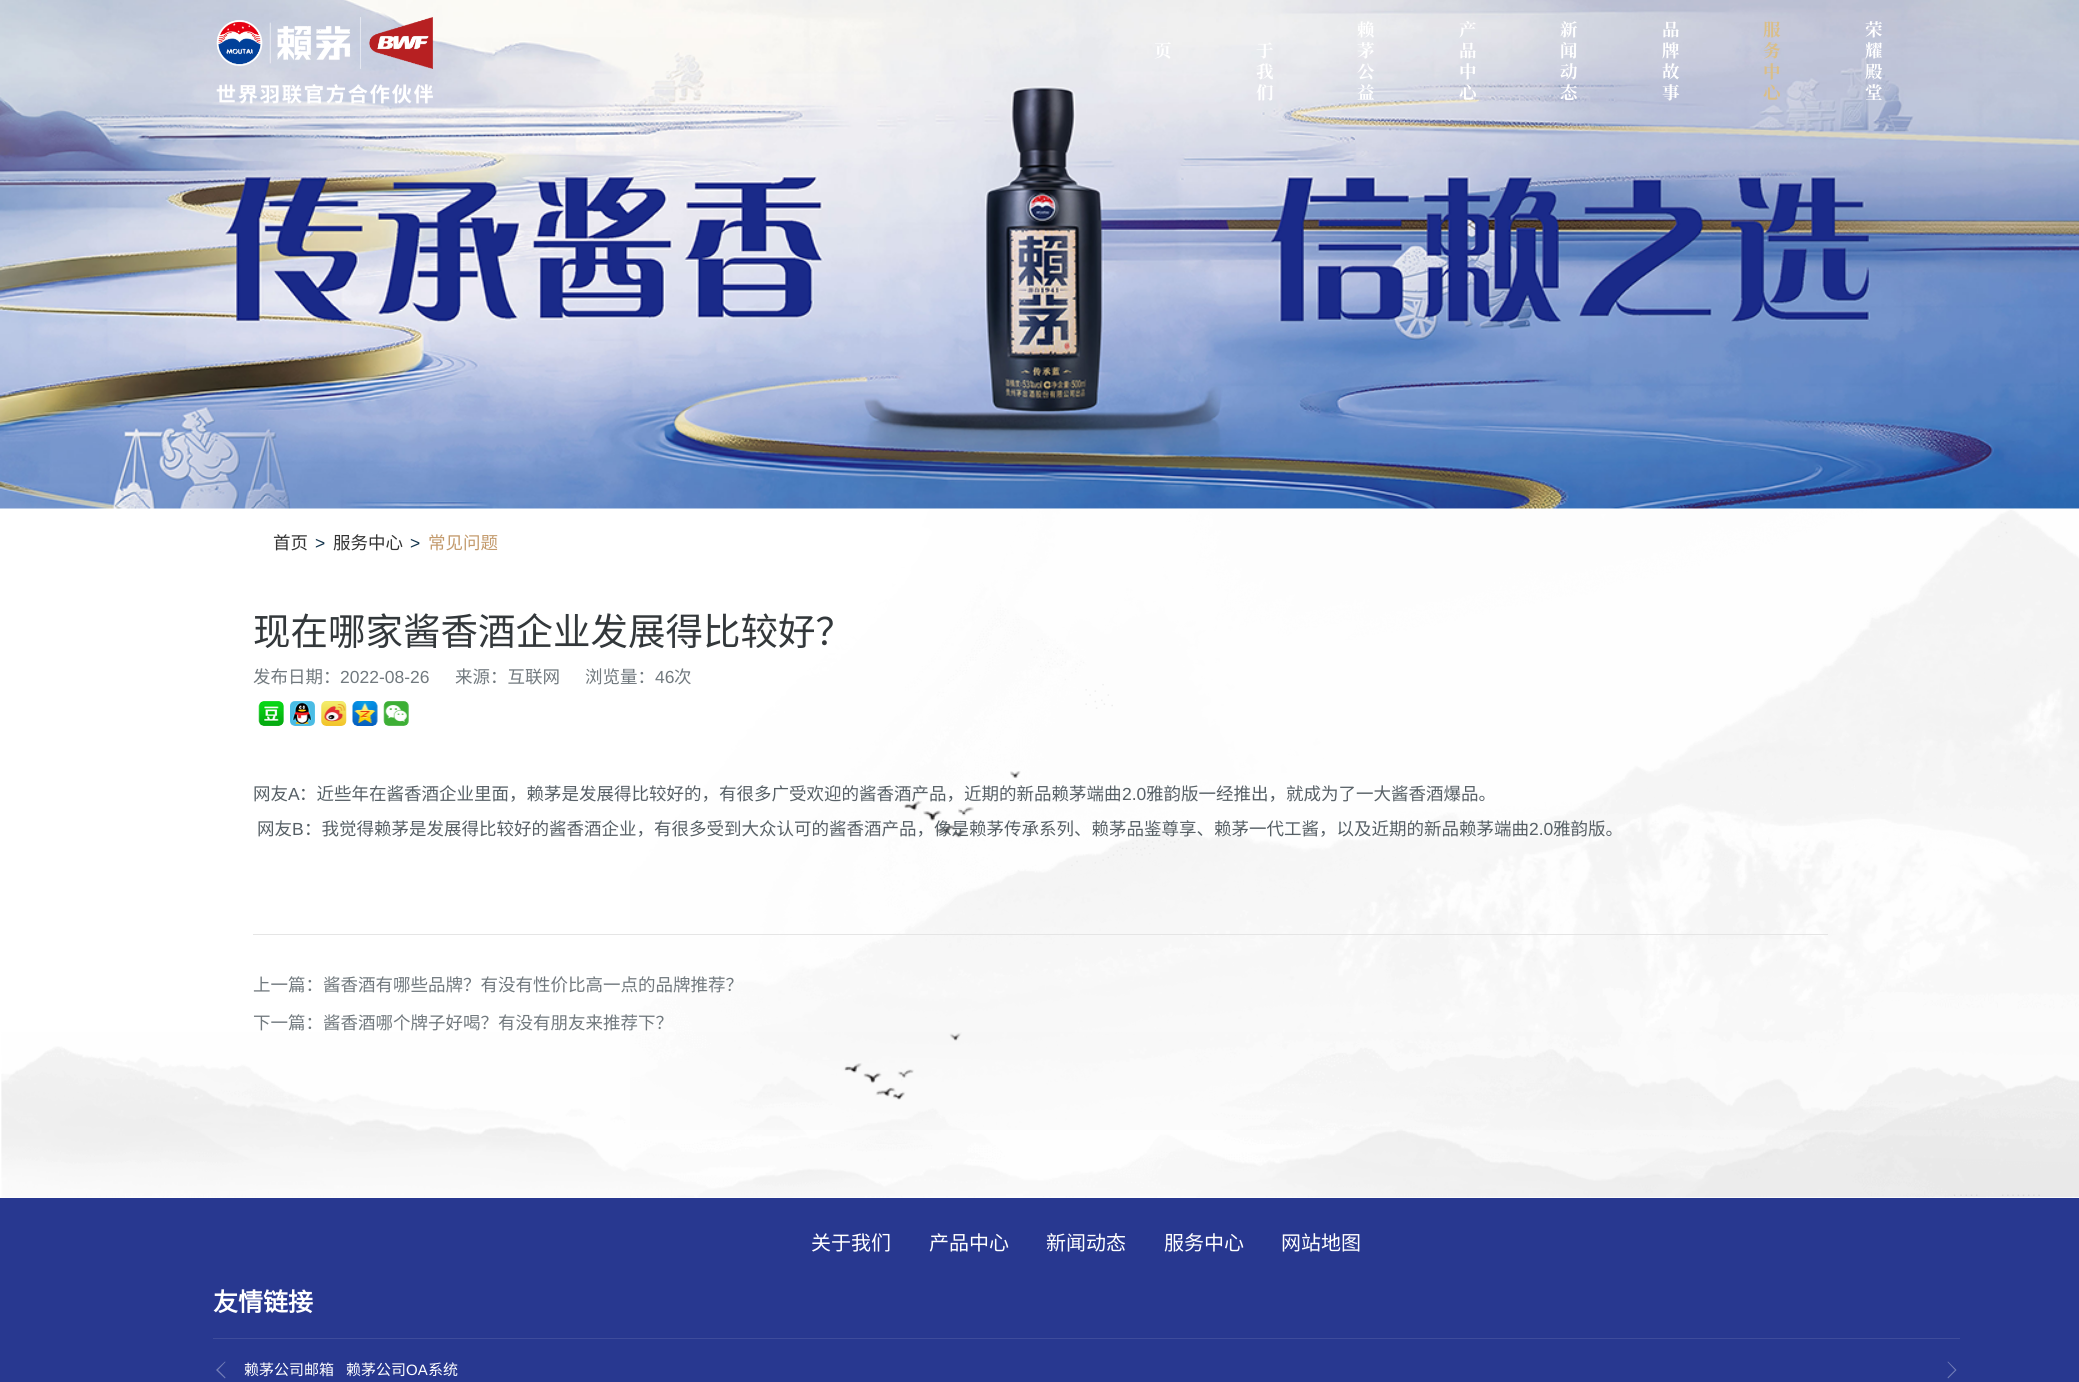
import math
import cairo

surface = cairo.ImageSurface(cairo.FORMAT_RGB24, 2079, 1382)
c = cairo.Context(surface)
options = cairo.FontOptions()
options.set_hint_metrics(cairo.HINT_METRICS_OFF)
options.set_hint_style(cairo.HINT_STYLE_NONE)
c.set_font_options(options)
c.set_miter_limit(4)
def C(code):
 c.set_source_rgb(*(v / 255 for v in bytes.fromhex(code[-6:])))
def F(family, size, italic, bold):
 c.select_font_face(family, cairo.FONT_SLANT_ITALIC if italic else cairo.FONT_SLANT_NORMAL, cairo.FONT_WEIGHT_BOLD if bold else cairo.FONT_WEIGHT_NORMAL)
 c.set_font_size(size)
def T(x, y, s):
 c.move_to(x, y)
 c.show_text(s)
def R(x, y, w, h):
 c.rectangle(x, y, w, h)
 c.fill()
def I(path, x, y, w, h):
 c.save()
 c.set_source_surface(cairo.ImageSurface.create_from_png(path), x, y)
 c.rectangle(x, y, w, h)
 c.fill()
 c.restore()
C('ffffff')
c.paint()
I('1.png',0,0,2079,509)
I('2.png',216,17,217,87)
F('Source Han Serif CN',17.5,0,1)
C('ffffff')
T(1154,57,'页')
T(1256,57,'于')
T(1256,78,'我')
T(1256,99,'们')
T(1357,36,'赖')
T(1357,57,'茅')
T(1357,78,'公')
T(1357,99,'益')
T(1459,36,'产')
T(1459,57,'品')
T(1459,78,'中')
T(1459,99,'心')
T(1560,36,'新')
T(1560,57,'闻')
T(1560,78,'动')
T(1560,99,'态')
T(1662,36,'品')
T(1662,57,'牌')
T(1662,78,'故')
T(1662,99,'事')
C('dabe87')
T(1763,36,'服')
T(1763,57,'务')
T(1763,78,'中')
T(1763,99,'心')
C('ffffff')
T(1865,36,'荣')
T(1865,57,'耀')
T(1865,78,'殿')
T(1865,99,'堂')
I('3.png',630,508,1449,622)
F('Noto Sans CJK SC',17.5,0,0)
C('333333')
T(273,549,'首页')
F('Liberation Sans',17.5,0,0)
C('12344d')
T(315,549,'>')
F('Noto Sans CJK SC',17.5,0,0)
C('333333')
T(333,549,'服务中心')
F('Liberation Sans',17.5,0,0)
C('12344d')
T(410,549,'>')
F('Noto Sans CJK SC',17.5,0,0)
C('c39a6c')
T(428,549,'常见问题')
F('Noto Sans CJK SC',37.5,0,0)
C('33383b')
T(253,645,'现在哪家酱香酒企业发展得比较好？')
F('Noto Sans CJK SC',17.5,0,0)
C('71797e')
T(253,683,'发布日期：')
F('Liberation Sans',17.5,0,0)
T(340,683,'2022-08-26')
F('Noto Sans CJK SC',17.5,0,0)
T(455,683,'来源：互联网')
T(585,683,'浏览量：')
F('Liberation Sans',17.5,0,0)
T(655,683,'46')
F('Noto Sans CJK SC',17.5,0,0)
T(674,683,'次')
I('4.png',258,701,26,25)
I('5.png',290,701,25,25)
I('6.png',321,701,26,25)
I('7.png',352,701,26,25)
I('8.png',383,701,26,25)
C('576066')
T(253,800,'网友')
F('Liberation Sans',17.5,0,0)
T(288,800,'A')
F('Noto Sans CJK SC',17.5,0,0)
T(299,800,'：近些年在酱香酒企业里面，赖茅是发展得比较好的，有很多广受欢迎的酱香酒产品，近期的新品赖茅端曲')
F('Liberation Sans',17.5,0,0)
T(1122,800,'2.0')
F('Noto Sans CJK SC',17.5,0,0)
T(1146,800,'雅韵版一经推出，就成为了一大酱香酒爆品。')
T(257,835,'网友')
F('Liberation Sans',17.5,0,0)
T(292,835,'B')
F('Noto Sans CJK SC',17.5,0,0)
T(304,835,'：我觉得赖茅是发展得比较好的酱香酒企业，有很多受到大众认可的酱香酒产品，像是赖茅传承系列、赖茅品鉴尊享、赖茅一代工酱，以及近期的新品赖茅端曲')
F('Liberation Sans',17.5,0,0)
T(1529,835,'2.0')
F('Noto Sans CJK SC',17.5,0,0)
T(1553,835,'雅韵版。')
C('e5e5e5')
R(253,934,1575,1)
C('71797e')
T(253,991,'上一篇：酱香酒有哪些品牌？有没有性价比高一点的品牌推荐？')
T(253,1029,'下一篇：酱香酒哪个牌子好喝？有没有朋友来推荐下？')
I('9.png',1,1032,2078,166)
C('283890')
R(0,1198,2079,184)
F('Noto Sans CJK SC',20,0,0)
C('ffffff')
T(811,1250,'关于我们')
T(929,1250,'产品中心')
T(1046,1250,'新闻动态')
T(1164,1250,'服务中心')
T(1281,1250,'网站地图')
C('3e4c9b')
R(213,1338,1747,1)
F('Noto Sans CJK SC',25,0,1)
C('ffffff')
T(213,1311,'友情链接')
C('737eb7')
c.new_path()
c.move_to(216,1370)
c.line_to(225,1361.5)
c.line_to(225.5,1362)
c.line_to(218,1370)
c.line_to(225.5,1377.5)
c.line_to(225,1378.5)
c.close_path()
c.fill()
F('Noto Sans CJK SC',15,0,0)
C('ffffff')
T(244,1375,'赖茅公司邮箱')
T(346,1375,'赖茅公司')
F('Liberation Sans',15,0,0)
T(406,1375,'OA')
F('Noto Sans CJK SC',15,0,0)
T(428,1375,'系统')
C('737eb7')
c.new_path()
c.move_to(1956.5,1370)
c.line_to(1948,1378.5)
c.line_to(1947.5,1377.5)
c.line_to(1955,1370)
c.line_to(1947.5,1362)
c.line_to(1948,1361.5)
c.close_path()
c.fill()
surface.write_to_png('o.png')
